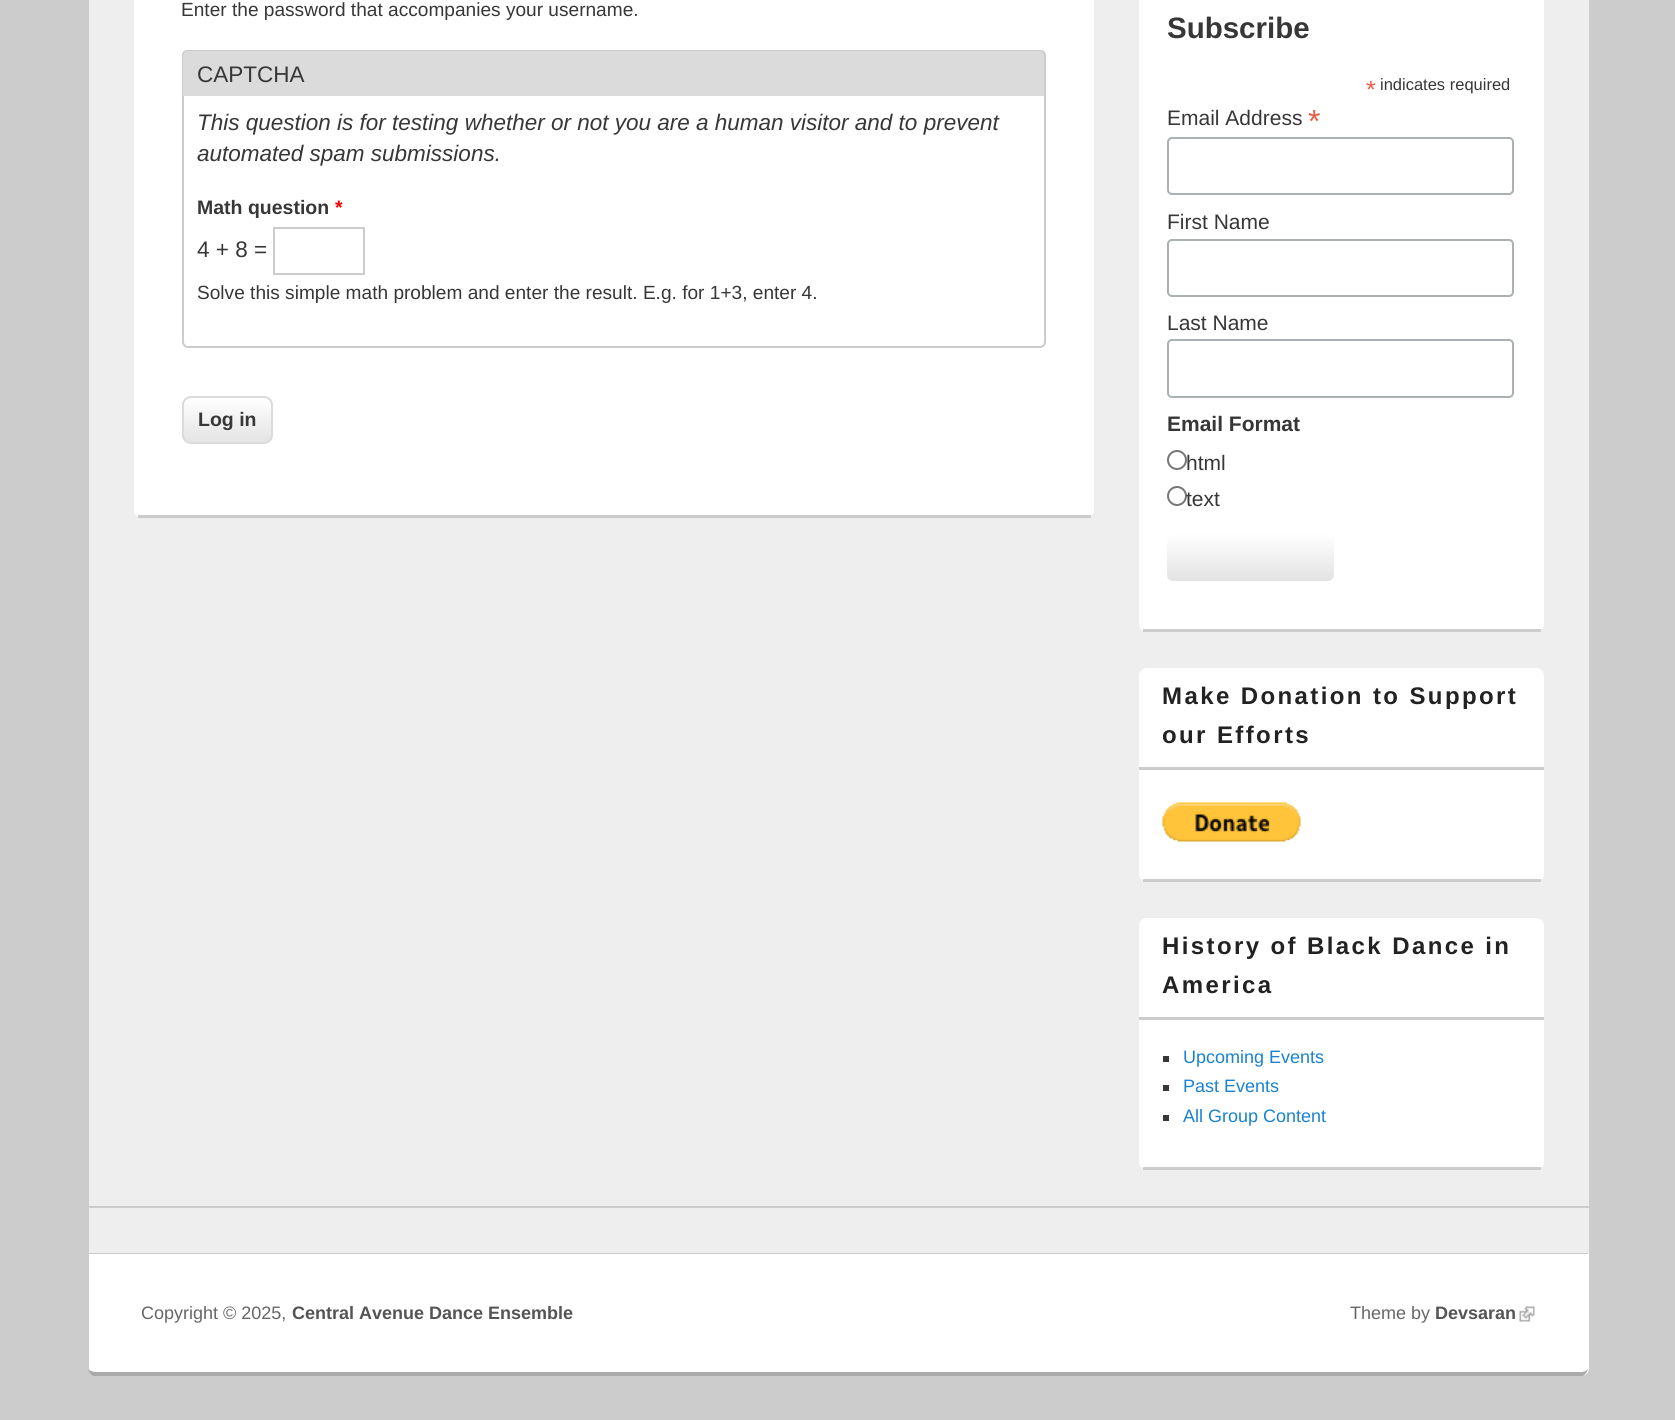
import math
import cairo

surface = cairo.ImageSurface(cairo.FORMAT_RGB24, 1675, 1420)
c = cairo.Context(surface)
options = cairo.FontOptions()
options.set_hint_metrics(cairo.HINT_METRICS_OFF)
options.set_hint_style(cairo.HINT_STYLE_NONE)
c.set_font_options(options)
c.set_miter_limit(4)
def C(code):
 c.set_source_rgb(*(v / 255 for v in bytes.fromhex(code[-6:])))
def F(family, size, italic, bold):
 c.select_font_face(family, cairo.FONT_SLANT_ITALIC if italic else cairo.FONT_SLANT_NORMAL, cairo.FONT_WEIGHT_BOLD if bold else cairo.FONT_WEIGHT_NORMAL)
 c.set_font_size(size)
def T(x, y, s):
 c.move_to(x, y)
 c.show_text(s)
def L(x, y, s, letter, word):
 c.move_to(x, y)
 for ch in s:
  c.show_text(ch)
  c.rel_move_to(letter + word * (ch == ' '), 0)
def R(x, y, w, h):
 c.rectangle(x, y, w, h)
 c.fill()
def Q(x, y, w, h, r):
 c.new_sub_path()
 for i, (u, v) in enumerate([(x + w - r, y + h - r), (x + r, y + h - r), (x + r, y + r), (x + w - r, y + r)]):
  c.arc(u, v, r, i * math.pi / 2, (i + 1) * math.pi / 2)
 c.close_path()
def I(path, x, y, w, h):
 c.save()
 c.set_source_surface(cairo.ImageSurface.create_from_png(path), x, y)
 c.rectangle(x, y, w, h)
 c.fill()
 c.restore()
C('cccccc')
c.paint()
C('eeeeee')
Q(89,-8,1500,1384,8)
c.fill()
C('ffffff')
Q(134,-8,960,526,8)
c.fill()
C('cccccc')
R(138,515,953,3)
F('Liberation Sans',19.1,0,0)
C('373737')
T(181,16,'Enter the password that accompanies your username.')
Q(183,67,862,280,5)
C('cccccc')
c.stroke()
C('dbdbdb')
c.new_path()
c.move_to(188,50)
c.line_to(1040,50)
c.curve_to(1043.5,50,1046,52.5,1046,56)
c.line_to(1046,96)
c.line_to(182,96)
c.line_to(182,56)
c.curve_to(182,52.5,184.5,50,188,50)
c.close_path()
c.fill()
C('cccccc')
c.set_fill_rule(cairo.FILL_RULE_EVEN_ODD)
c.new_path()
c.move_to(188,50)
c.line_to(1040,50)
c.curve_to(1043,50,1046,52,1046,56)
c.line_to(1046,96)
c.line_to(182,96)
c.line_to(182,56)
c.curve_to(182,52,184,50,188,50)
c.close_path()
c.move_to(188,51)
c.line_to(1040,51)
c.curve_to(1042,51,1044,53,1044,56)
c.line_to(1044,96)
c.line_to(183,96)
c.line_to(183,56)
c.curve_to(183,53,185,51,188,51)
c.close_path()
c.fill()
F('Liberation Sans',22.5,0,0)
C('373737')
T(197,82,'CAPTCHA')
F('Liberation Sans',22.5,1,0)
T(197,130,'This question is for testing whether or not you are a human visitor and to prevent')
T(197,161,'automated spam submissions.')
F('Liberation Sans',19.5,0,1)
T(197,214,'Math question')
C('ff0000')
T(335,214,'*')
F('Liberation Sans',22.5,0,0)
C('373737')
T(197,257,'4 + 8 =')
c.rectangle(274,228,90,46)
C('cccccc')
c.stroke()
F('Liberation Sans',19.1,0,0)
C('373737')
T(197,299,'Solve this simple math problem and enter the result. E.g. for 1+3, enter 4.')
c.save()
c.set_fill_rule(cairo.FILL_RULE_WINDING)
Q(182,396,91,48,9)
c.clip()
gradient = cairo.LinearGradient(227,398,227,443)
gradient.add_color_stop_rgba(0,1,1,1,1)
gradient.add_color_stop_rgba(1,0.89,0.89,0.89,1)
c.set_source(gradient)
R(182,398,91,45)
c.restore()
Q(183,397,89,46,8)
C('dbdbdb')
c.stroke()
F('Liberation Sans',19.5,0,1)
C('373737')
T(198,426,'Log in')
C('ffffff')
Q(1139,-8,405,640,8)
c.fill()
C('cccccc')
R(1143,629,398,3)
F('Liberation Sans',29.5,0,1)
C('373737')
T(1167,38,'Subscribe')
F('Liberation Sans',25,0,0)
C('e85c41')
T(1366,98,'*')
F('Liberation Sans',16.5,0,0)
C('373737')
T(1380,90,'indicates required')
F('Liberation Sans',21,0,0)
T(1167,125,'Email Address')
F('Liberation Sans',32,0,0)
C('e85c41')
T(1308,132,'*')
Q(1168,138,345,56,4)
C('abb0b2')
c.stroke()
F('Liberation Sans',21,0,0)
C('373737')
T(1167,229,'First Name')
Q(1168,240,345,56,4)
C('abb0b2')
c.stroke()
C('373737')
T(1167,330,'Last Name')
Q(1168,340,345,57,4)
C('abb0b2')
c.stroke()
F('Liberation Sans',21,0,1)
C('373737')
T(1167,431,'Email Format')
c.new_path()
c.arc(1177,460,9,0,2 * math.pi)
C('767676')
c.stroke()
F('Liberation Sans',21,0,0)
C('373737')
T(1186,470,'html')
c.new_path()
c.arc(1177,496,9,0,2 * math.pi)
C('767676')
c.stroke()
C('373737')
T(1186,506,'text')
gradient = cairo.LinearGradient(1250,533,1250,581)
gradient.add_color_stop_rgba(0,1,1,1,1)
gradient.add_color_stop_rgba(1,0.89,0.89,0.89,1)
c.set_source(gradient)
Q(1167,533,167,48,6)
c.fill()
C('ffffff')
Q(1139,668,405,214,8)
c.fill()
C('cccccc')
R(1143,879,398,3)
R(1139,767,405,3)
F('Liberation Sans',24,0,1)
C('222222')
L(1162,704,'Make Donation to Support',2.4,0)
L(1162,743,'our Efforts',2.4,0)
I('1.png',1162,802,139,40)
C('ffffff')
Q(1139,918,405,252,8)
c.fill()
C('cccccc')
R(1143,1167,398,3)
R(1139,1017,405,3)
C('222222')
L(1162,954,'History of Black Dance in',2.4,0)
L(1162,993,'America',2.4,0)
C('373737')
R(1163,1056,6,6)
F('Liberation Sans',18,0,0)
C('1982d1')
T(1183,1063,'Upcoming Events')
C('373737')
R(1163,1085,6,6)
C('1982d1')
T(1183,1092,'Past Events')
C('373737')
R(1163,1115,6,6)
C('1982d1')
T(1183,1122,'All Group Content')
C('cccccc')
R(89,1206,1500,2)
C('ffffff')
c.new_path()
c.move_to(89,1253)
c.line_to(1589,1253)
c.line_to(1589,1368)
c.curve_to(1589,1372.5,1585.5,1376,1581,1376)
c.line_to(97,1376)
c.curve_to(92.5,1376,89,1372.5,89,1368)
c.close_path()
c.fill()
C('cccccc')
R(88,1252,1500,2)
C('eeeeee')
R(89,1252,1499,1)
C('aaaaaa')
c.set_fill_rule(cairo.FILL_RULE_WINDING)
c.new_path()
c.move_to(1583,1376)
c.curve_to(1586,1374,1588,1371,1588,1368)
c.curve_to(1588,1370,1585,1372,1581,1372)
c.line_to(96,1372)
c.curve_to(93,1372,90,1371,88,1369)
c.curve_to(88,1371,91,1375,93,1376)
c.close_path()
c.fill()
C('666666')
T(141,1319,'Copyright © 2025,')
F('Liberation Sans',18,0,1)
C('555555')
T(292,1319,'Central Avenue Dance Ensemble')
F('Liberation Sans',18,0,0)
C('666666')
T(1350,1319,'Theme by')
F('Liberation Sans',18,0,1)
C('555555')
T(1435,1319,'Devsaran')
I('2.png',1519,1306,16,16)
surface.write_to_png('o.png')
